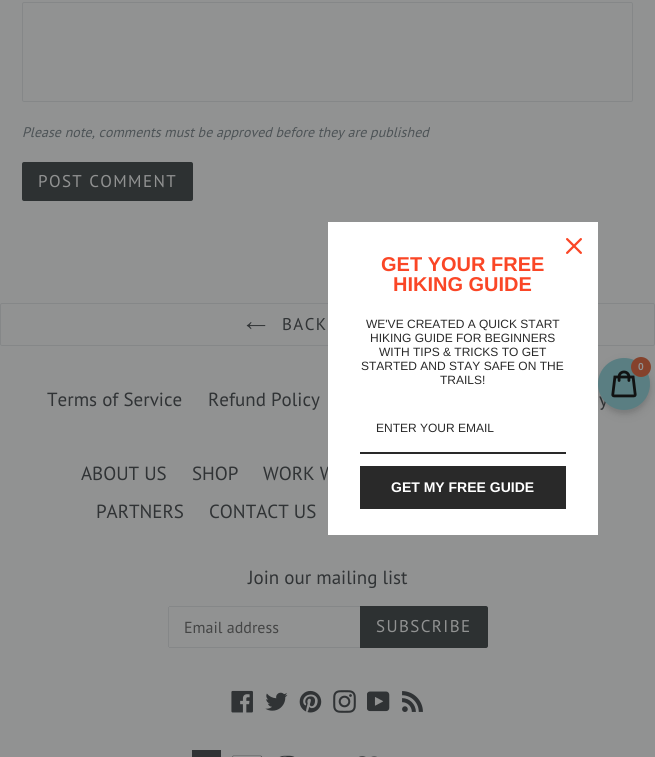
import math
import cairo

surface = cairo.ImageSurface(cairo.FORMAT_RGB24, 655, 757)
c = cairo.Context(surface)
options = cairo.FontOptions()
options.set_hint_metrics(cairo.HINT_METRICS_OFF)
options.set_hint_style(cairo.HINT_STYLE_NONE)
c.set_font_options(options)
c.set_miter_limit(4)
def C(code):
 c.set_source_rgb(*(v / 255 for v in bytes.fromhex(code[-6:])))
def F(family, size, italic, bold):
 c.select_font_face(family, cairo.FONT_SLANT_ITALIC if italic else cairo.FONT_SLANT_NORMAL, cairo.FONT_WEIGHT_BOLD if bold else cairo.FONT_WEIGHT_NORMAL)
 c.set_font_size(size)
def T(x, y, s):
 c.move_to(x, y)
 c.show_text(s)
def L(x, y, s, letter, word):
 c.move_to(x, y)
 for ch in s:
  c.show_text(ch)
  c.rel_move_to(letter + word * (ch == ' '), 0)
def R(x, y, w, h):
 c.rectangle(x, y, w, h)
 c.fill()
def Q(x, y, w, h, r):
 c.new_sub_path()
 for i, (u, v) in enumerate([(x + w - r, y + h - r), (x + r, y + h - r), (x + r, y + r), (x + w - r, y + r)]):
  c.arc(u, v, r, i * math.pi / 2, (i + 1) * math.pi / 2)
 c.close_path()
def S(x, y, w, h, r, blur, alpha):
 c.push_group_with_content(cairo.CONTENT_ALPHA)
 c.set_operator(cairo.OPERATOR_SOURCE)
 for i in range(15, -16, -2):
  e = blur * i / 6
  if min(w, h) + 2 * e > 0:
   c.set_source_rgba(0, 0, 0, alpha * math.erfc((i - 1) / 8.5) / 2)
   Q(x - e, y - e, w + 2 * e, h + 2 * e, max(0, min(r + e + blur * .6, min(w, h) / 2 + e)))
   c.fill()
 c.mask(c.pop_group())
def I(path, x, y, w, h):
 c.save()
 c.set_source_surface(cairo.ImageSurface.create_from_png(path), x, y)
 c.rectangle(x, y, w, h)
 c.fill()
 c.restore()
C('919292')
c.paint()
Q(22.5,2.5,610,99,1.5)
C('858788')
c.set_line_width(1)
c.stroke()
F('PT Sans',14,1,0)
C('4d5356')
T(22,137,'Please note, comments must be approved before they are published')
C('2d3132')
Q(22,162,171,39,2)
c.fill()
F('PT Sans',17,0,0)
C('919292')
L(38,187,'POST COMMENT',1.4,0)
Q(.5,303.5,654,42,1.5)
C('858788')
c.stroke()
I('1.png',246,322,20,8)
C('303335')
L(282,330,'BACK',1.4,0)
F('PT Sans',19,0,0)
T(47,406,'Terms of Service')
T(208,406,'Refund Policy')
T(599,406,'y')
T(81,480,'ABOUT US')
T(192,480,'SHOP')
T(263,480,'WORK W')
T(96,518,'PARTNERS')
T(209,518,'CONTACT US')
T(248,584,'Join our mailing list')
C('858788')
R(169,606,191,1)
R(169,647,191,1)
R(168,607,1,40)
F('PT Sans',16,0,0)
C('444545')
T(184,633,'Email address')
C('2d3132')
c.new_path()
c.move_to(360,606)
c.line_to(486,606)
c.curve_to(487,606,488,607,488,608)
c.line_to(488,646)
c.curve_to(488,647,487,648,486,648)
c.line_to(360,648)
c.close_path()
c.fill()
F('PT Sans',17,0,0)
C('919292')
L(376,632,'SUBSCRIBE',1.4,0)
I('2.png',231,690,22,23)
I('3.png',265,692,23,19)
I('4.png',299,690,23,23)
I('5.png',333,690,23,23)
I('6.png',367,691,23,21)
I('7.png',402,691,21,21)
C('303335')
R(192,750,29,7)
I('8.png',232,755,30,2)
I('9.png',279,755,16,2)
I('10.png',359,756,18,1)
C('111212')
S(598,362,52,52,26,2,.08)
S(599,362,52,52,26,5,.12)
C('ffffff')
R(328,222,270,313)
I('11.png',566,238,16,16)
F('Liberation Sans',20,0,1)
C('fa4626')
T(381,271,'GET YOUR FREE')
T(393,291,'HIKING GUIDE')
F('Liberation Sans',12,0,0)
C('292929')
T(366,328,'WE\'VE CREATED A QUICK START')
T(370,342,'HIKING GUIDE FOR BEGINNERS')
T(379,356,'WITH TIPS & TRICKS TO GET')
T(361,370,'STARTED AND STAY SAFE ON THE')
T(440,384,'TRAILS!')
R(360,452,206,2)
T(376,432,'ENTER YOUR EMAIL')
R(360,466,206,43)
F('Liberation Sans',14,0,1)
C('ffffff')
T(391,492,'GET MY FREE GUIDE')
C('5a7e82')
c.new_path()
c.arc(624,384,26,0,2 * math.pi)
c.fill()
I('12.png',611,370,26,28)
C('85422c')
c.arc(641,367,10,0,2 * math.pi)
c.fill()
F('PT Sans',10,0,1)
C('919292')
T(638,370,'0')
surface.write_to_png('o.png')
